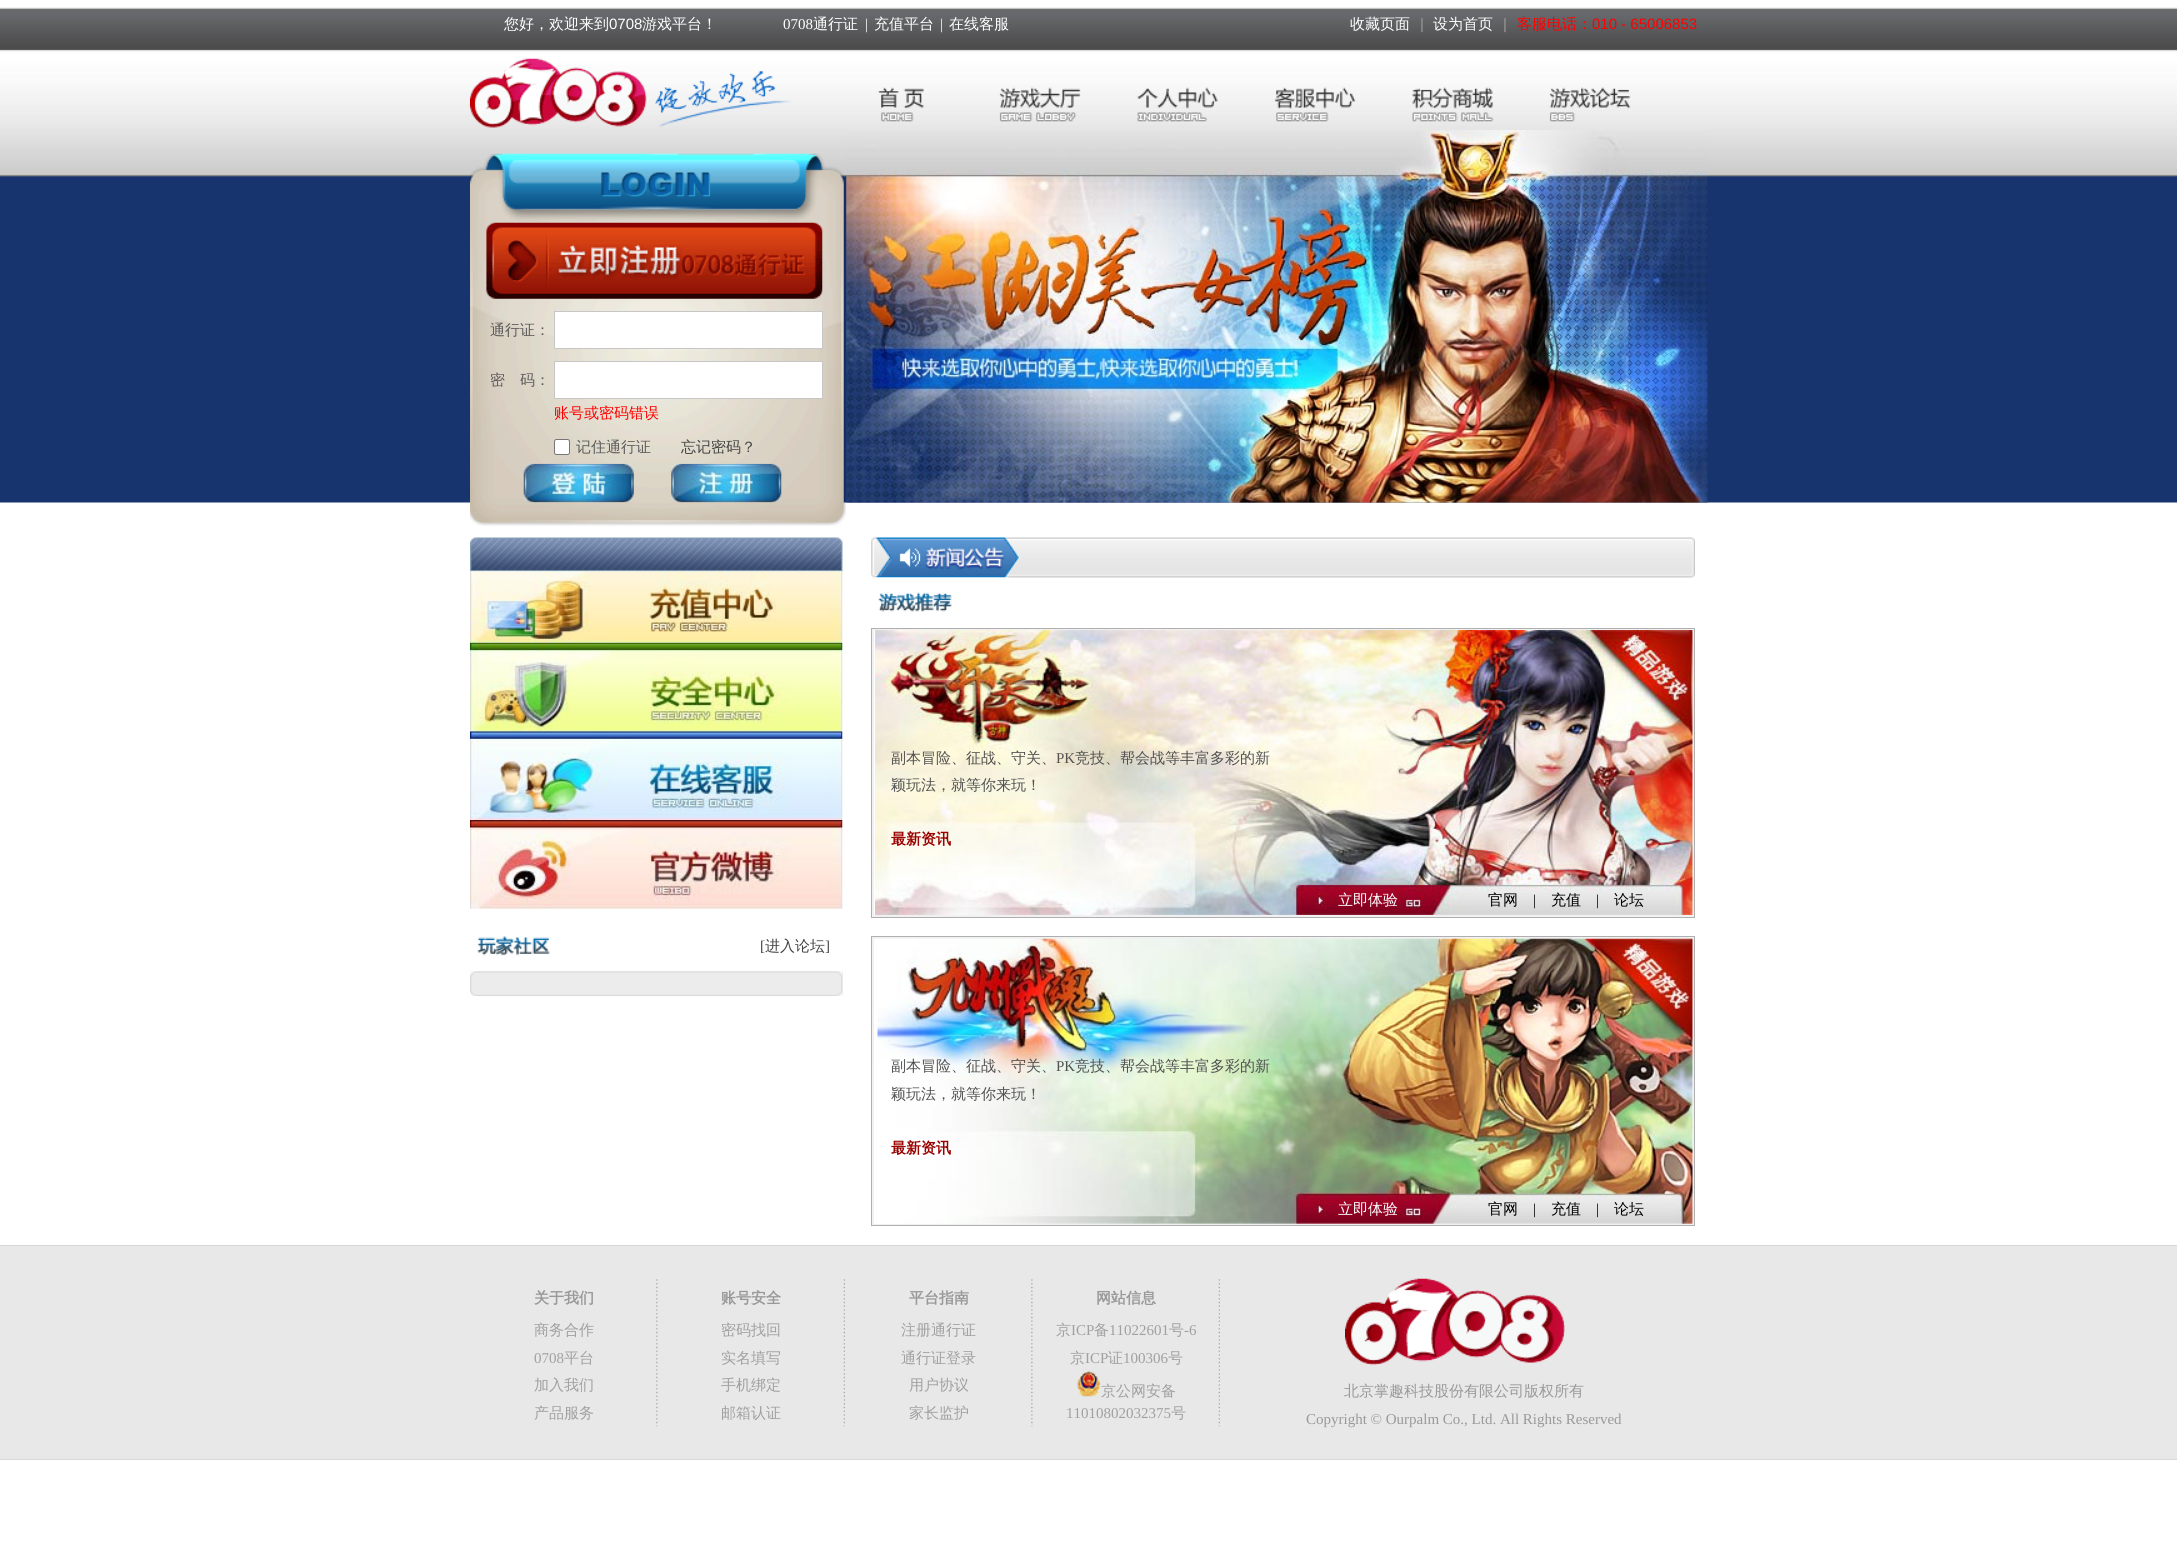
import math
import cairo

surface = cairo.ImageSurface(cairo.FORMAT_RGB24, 2177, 1567)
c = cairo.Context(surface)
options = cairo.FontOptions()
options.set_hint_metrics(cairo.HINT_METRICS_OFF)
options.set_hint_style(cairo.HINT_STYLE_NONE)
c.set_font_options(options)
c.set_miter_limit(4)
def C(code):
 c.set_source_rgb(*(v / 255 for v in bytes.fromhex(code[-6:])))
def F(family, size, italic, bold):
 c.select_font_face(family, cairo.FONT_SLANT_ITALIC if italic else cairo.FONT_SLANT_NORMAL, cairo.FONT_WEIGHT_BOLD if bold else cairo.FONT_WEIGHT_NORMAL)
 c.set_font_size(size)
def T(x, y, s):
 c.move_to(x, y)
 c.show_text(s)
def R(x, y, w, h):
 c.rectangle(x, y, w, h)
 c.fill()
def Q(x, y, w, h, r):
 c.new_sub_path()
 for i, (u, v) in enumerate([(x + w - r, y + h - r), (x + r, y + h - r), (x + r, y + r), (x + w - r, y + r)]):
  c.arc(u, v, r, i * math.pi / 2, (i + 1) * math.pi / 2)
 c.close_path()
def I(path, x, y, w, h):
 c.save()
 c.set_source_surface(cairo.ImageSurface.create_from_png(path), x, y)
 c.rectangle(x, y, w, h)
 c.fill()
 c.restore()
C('ffffff')
c.paint()
I('1.png',0,7,2177,496)
F('WenQuanYi Zen Hei Medium',15,0,0)
C('ffffff')
T(504,29,'您好，欢迎来到')
F('Liberation Sans',15,0,0)
T(609,29,'0708')
F('WenQuanYi Zen Hei Medium',15,0,0)
T(642,29,'游戏平台！')
F('Liberation Serif',15,0,0)
T(783,29,'0708')
F('WenQuanYi Zen Hei Medium',15,0,0)
T(813,29,'通行证')
F('Liberation Serif',15,0,0)
T(865,29,'|')
F('WenQuanYi Zen Hei Medium',15,0,0)
T(874,29,'充值平台')
F('Liberation Serif',15,0,0)
T(940,29,'|')
F('WenQuanYi Zen Hei Medium',15,0,0)
T(949,29,'在线客服')
T(1350,29,'收藏页面')
F('Liberation Sans',15,0,0)
C('999999')
T(1420,29,'|')
F('WenQuanYi Zen Hei Medium',15,0,0)
C('ffffff')
T(1433,29,'设为首页')
F('Liberation Sans',15,0,0)
C('999999')
T(1503,29,'|')
F('WenQuanYi Zen Hei Medium',15,0,0)
C('ff0000')
T(1517,29,'客服电话：')
F('Liberation Sans',15,0,0)
T(1592,29,'010 - 65006853')
I('2.png',470,58,177,70)
I('3.png',655,71,136,56)
I('4.png',878,87,46,35)
I('5.png',999,87,82,35)
I('6.png',1137,87,81,35)
I('7.png',1274,87,82,35)
I('8.png',1412,87,82,35)
I('9.png',1549,87,82,35)
I('10.png',470,153,376,373)
I('11.png',486,222,337,77)
F('WenQuanYi Zen Hei Medium',15,0,0)
C('5c5b5b')
T(490,335,'通行证：')
C('ffffff')
c.rectangle(554.5,311.5,268,37)
c.fill_preserve()
C('c6c6c6')
c.set_line_width(1)
c.stroke()
C('5c5b5b')
T(490,385,'密　码：')
C('ffffff')
c.rectangle(554.5,361.5,268,37)
c.fill_preserve()
C('c6c6c6')
c.stroke()
C('ff0000')
T(554,418,'账号或密码错误')
C('ffffff')
Q(554.5,439.5,15,15,2)
c.fill_preserve()
C('767676')
c.stroke()
C('5c5b5b')
T(576,452,'记住通行证')
C('434343')
T(681,452,'忘记密码？')
I('12.png',523,463,111,40)
I('13.png',671,463,111,40)
I('14.png',470,537,373,35)
I('15.png',470,571,373,72)
I('16.png',470,642,373,90)
I('17.png',470,731,373,89)
I('18.png',470,820,373,89)
I('19.png',477,936,74,20)
F('Liberation Serif',15,0,0)
T(760,951,'[')
F('WenQuanYi Zen Hei Medium',15,0,0)
T(765,951,'进入论坛')
F('Liberation Serif',15,0,0)
T(825,951,']')
I('20.png',470,971,373,25)
I('21.png',470,971,373,15)
I('22.png',470,987,373,9)
I('23.png',846,130,862,373)
I('24.png',871,537,824,41)
I('25.png',873,577,136,35)
C('f0f1f0')
c.rectangle(871.5,628.5,823,289)
c.fill_preserve()
C('afafaf')
c.stroke()
C('ffffff')
R(874,630,819,285)
I('26.png',875,630,818,285)
F('WenQuanYi Zen Hei Medium',15,0,0)
C('515151')
T(891,763,'副本冒险、征战、守关、')
F('Liberation Serif',15,0,0)
T(1056,763,'PK')
F('WenQuanYi Zen Hei Medium',15,0,0)
T(1075,763,'竞技、帮会战等丰富多彩的新')
T(891,790,'颖玩法，就等你来玩！')
F('WenQuanYi Zen Hei',15,0,1)
C('990000')
T(891,844,'最新资讯')
F('WenQuanYi Zen Hei Medium',15,0,0)
C('ffffff')
T(1338,905,'立即体验')
C('000000')
T(1488,905,'官网')
F('Liberation Serif',15,0,0)
T(1533,905,'|')
F('WenQuanYi Zen Hei Medium',15,0,0)
T(1551,905,'充值')
F('Liberation Serif',15,0,0)
T(1596,905,'|')
F('WenQuanYi Zen Hei Medium',15,0,0)
T(1614,905,'论坛')
C('f0f1f0')
c.rectangle(871.5,936.5,823,289)
c.fill_preserve()
C('afafaf')
c.stroke()
C('ffffff')
R(874,939,819,285)
I('27.png',877,938,816,286)
C('515151')
T(891,1071,'副本冒险、征战、守关、')
F('Liberation Serif',15,0,0)
T(1056,1071,'PK')
F('WenQuanYi Zen Hei Medium',15,0,0)
T(1075,1071,'竞技、帮会战等丰富多彩的新')
T(891,1099,'颖玩法，就等你来玩！')
F('WenQuanYi Zen Hei',15,0,1)
C('990000')
T(891,1153,'最新资讯')
F('WenQuanYi Zen Hei Medium',15,0,0)
C('ffffff')
T(1338,1214,'立即体验')
C('000000')
T(1488,1214,'官网')
F('Liberation Serif',15,0,0)
T(1533,1214,'|')
F('WenQuanYi Zen Hei Medium',15,0,0)
T(1551,1214,'充值')
F('Liberation Serif',15,0,0)
T(1596,1214,'|')
F('WenQuanYi Zen Hei Medium',15,0,0)
T(1614,1214,'论坛')
C('e8e8e8')
R(0,1246,2177,213)
C('d8d8d8')
R(0,1245,2177,1)
R(0,1459,2177,1)
I('28.png',656,1279,2,148)
F('WenQuanYi Zen Hei',15,0,1)
C('999999')
T(534,1303,'关于我们')
F('WenQuanYi Zen Hei Medium',15,0,0)
C('a0a0a0')
T(534,1335,'商务合作')
F('Liberation Serif',15,0,0)
T(534,1363,'0708')
F('WenQuanYi Zen Hei Medium',15,0,0)
T(564,1363,'平台')
T(534,1390,'加入我们')
T(534,1418,'产品服务')
I('29.png',843,1279,2,148)
F('WenQuanYi Zen Hei',15,0,1)
C('999999')
T(721,1303,'账号安全')
F('WenQuanYi Zen Hei Medium',15,0,0)
C('a0a0a0')
T(721,1335,'密码找回')
T(721,1363,'实名填写')
T(721,1390,'手机绑定')
T(721,1418,'邮箱认证')
I('28.png',1031,1279,2,148)
F('WenQuanYi Zen Hei',15,0,1)
C('999999')
T(909,1303,'平台指南')
F('WenQuanYi Zen Hei Medium',15,0,0)
C('a0a0a0')
T(901,1335,'注册通行证')
T(901,1363,'通行证登录')
T(909,1390,'用户协议')
T(909,1418,'家长监护')
I('29.png',1218,1279,2,148)
F('WenQuanYi Zen Hei',15,0,1)
C('999999')
T(1096,1303,'网站信息')
F('WenQuanYi Zen Hei Medium',15,0,0)
C('a0a0a0')
T(1056,1335,'京')
F('Liberation Serif',15,0,0)
T(1071,1335,'ICP')
F('WenQuanYi Zen Hei Medium',15,0,0)
T(1094,1335,'备')
F('Liberation Serif',15,0,0)
T(1109,1335,'11022601')
F('WenQuanYi Zen Hei Medium',15,0,0)
T(1169,1335,'号')
F('Liberation Serif',15,0,0)
T(1184,1335,'-6')
F('WenQuanYi Zen Hei Medium',15,0,0)
T(1070,1363,'京')
F('Liberation Serif',15,0,0)
T(1085,1363,'ICP')
F('WenQuanYi Zen Hei Medium',15,0,0)
T(1108,1363,'证')
F('Liberation Serif',15,0,0)
T(1123,1363,'100306')
F('WenQuanYi Zen Hei Medium',15,0,0)
T(1168,1363,'号')
I('30.png',1077,1371,24,26)
T(1101,1396,'京公网安备')
F('Liberation Serif',15,0,0)
T(1066,1418,'11010802032375')
F('WenQuanYi Zen Hei Medium',15,0,0)
T(1171,1418,'号')
I('31.png',1345,1278,220,87)
C('999999')
T(1344,1396,'北京掌趣科技股份有限公司版权所有')
F('Liberation Serif',15,0,0)
T(1306,1424,'Copyright © Ourpalm Co., Ltd. All Rights Reserved')
surface.write_to_png('o.png')
